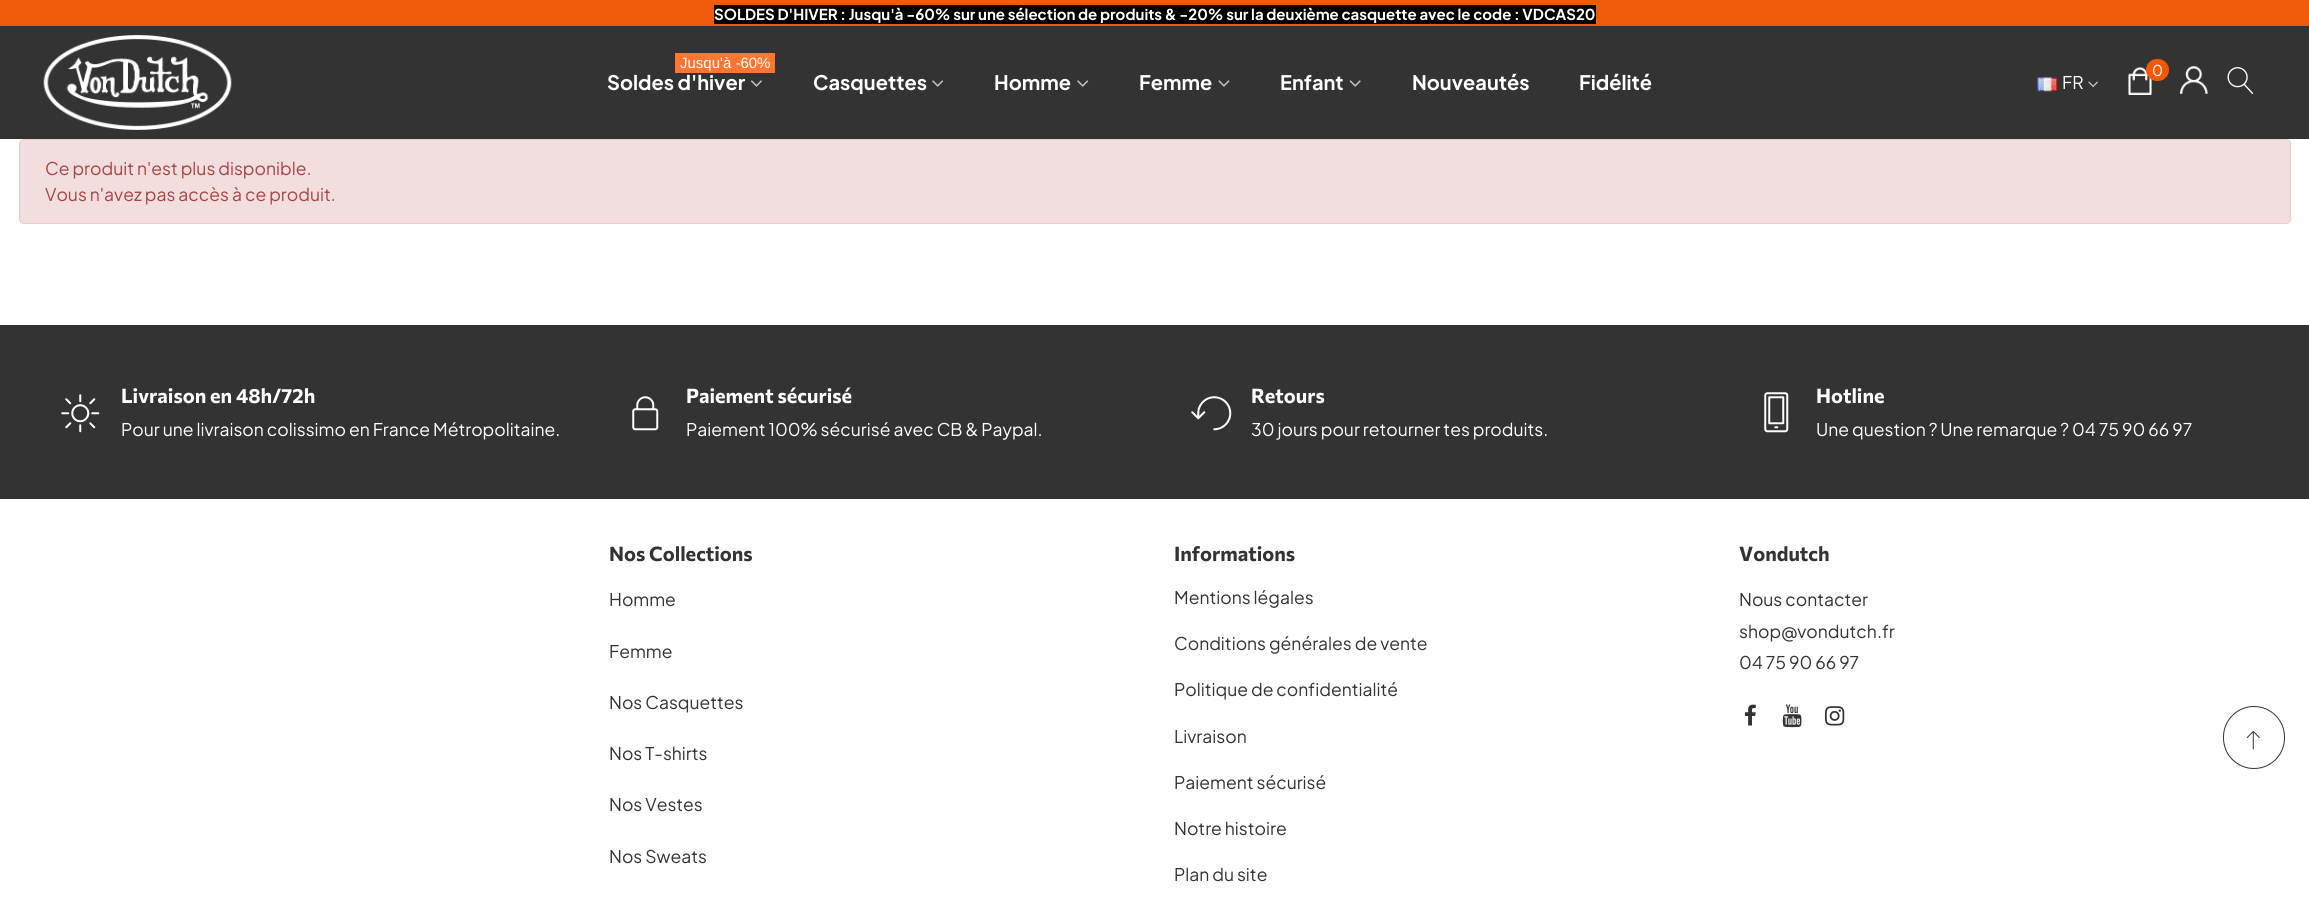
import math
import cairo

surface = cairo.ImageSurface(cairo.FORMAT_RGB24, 2309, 900)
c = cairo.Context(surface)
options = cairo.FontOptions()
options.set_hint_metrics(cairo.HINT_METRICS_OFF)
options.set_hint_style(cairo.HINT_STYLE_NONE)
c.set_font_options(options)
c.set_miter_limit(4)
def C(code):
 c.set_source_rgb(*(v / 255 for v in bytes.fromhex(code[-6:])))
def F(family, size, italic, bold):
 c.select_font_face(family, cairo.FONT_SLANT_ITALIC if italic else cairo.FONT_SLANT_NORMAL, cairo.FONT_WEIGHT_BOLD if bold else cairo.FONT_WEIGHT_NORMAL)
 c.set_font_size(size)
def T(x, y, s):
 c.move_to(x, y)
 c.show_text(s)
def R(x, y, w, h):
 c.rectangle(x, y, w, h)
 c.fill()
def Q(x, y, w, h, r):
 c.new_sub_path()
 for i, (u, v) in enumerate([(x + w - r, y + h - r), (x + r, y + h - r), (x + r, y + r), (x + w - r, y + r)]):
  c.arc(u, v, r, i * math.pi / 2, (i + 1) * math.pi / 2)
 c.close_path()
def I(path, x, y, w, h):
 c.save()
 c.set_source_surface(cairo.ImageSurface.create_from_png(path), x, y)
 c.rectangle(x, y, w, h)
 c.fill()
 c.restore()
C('ffffff')
c.paint()
C('333333')
R(0,26,2309,113)
C('f05b0b')
R(0,0,2309,26)
C('000000')
R(714,5,882,19)
F('Plus Jakarta Sans',15,0,1)
C('ffffff')
T(714,20,'SOLDES D\'HIVER : Jusqu\'à -60% sur une sélection de produits & -20% sur la deuxième casquette avec le code : VDCAS20')
I('1.png',43,35,189,95)
C('ff7632')
R(675,53,100,20)
F('Liberation Sans',15,0,0)
C('ffffff')
T(680,68,'Jusqu\'à -60%')
F('Plus Jakarta Sans',20,0,1)
T(607,90,'Soldes d\'hiver')
I('2.png',750,80,12,7)
T(813,90,'Casquettes')
I('3.png',932,80,12,7)
T(994,90,'Homme')
I('3.png',1077,80,12,7)
T(1139,90,'Femme')
I('4.png',1218,80,12,7)
T(1280,90,'Enfant')
I('5.png',1349,80,12,7)
T(1412,90,'Nouveautés')
T(1579,90,'Fidélité')
I('6.png',2037,77,21,15)
F('Plus Jakarta Sans',17.5,0,0)
T(2062,89,'FR')
I('7.png',2088,81,10,7)
I('8.png',2128,67,24,28)
C('fa5703')
Q(2146,59,23,22,11)
c.fill()
F('Plus Jakarta Sans',15,0,0)
C('ffffff')
T(2152,76,'0')
I('9.png',2180,66,28,28)
I('10.png',2227,67,27,27)
C('f2dede')
Q(19.5,139.5,2271,84,4.5)
c.fill_preserve()
C('ebcccc')
c.set_line_width(1)
c.stroke()
F('Plus Jakarta Sans',17.5,0,0)
C('a94442')
T(45,175,'Ce produit n\'est plus disponible.')
T(45,201,'Vous n\'avez pas accès à ce produit.')
C('333333')
R(0,325,2309,174)
I('11.png',61,394,39,39)
F('Commissioner',20,0,1)
C('ffffff')
T(121,403,'Livraison en 48h/72h')
F('Plus Jakarta Sans',17.5,0,0)
T(121,436,'Pour une livraison colissimo en France Métropolitaine.')
I('12.png',632,396,27,35)
F('Commissioner',20,0,1)
T(686,403,'Paiement sécurisé')
F('Plus Jakarta Sans',17.5,0,0)
T(686,436,'Paiement 100% sécurisé avec CB & Paypal.')
I('13.png',1191,396,41,35)
F('Commissioner',20,0,1)
T(1251,403,'Retours')
F('Plus Jakarta Sans',17.5,0,0)
T(1251,436,'30 jours pour retourner tes produits.')
I('14.png',1764,392,25,41)
F('Commissioner',20,0,1)
T(1816,403,'Hotline')
F('Plus Jakarta Sans',17.5,0,0)
T(1816,436,'Une question ? Une remarque ? 04 75 90 66 97')
F('Commissioner',20,0,1)
C('333333')
T(609,561,'Nos Collections')
F('Plus Jakarta Sans',17.5,0,0)
T(609,606,'Homme')
T(609,658,'Femme')
T(609,709,'Nos Casquettes')
T(609,760,'Nos T-shirts')
T(609,811,'Nos Vestes')
T(609,863,'Nos Sweats')
F('Commissioner',20,0,1)
T(1174,561,'Informations')
F('Plus Jakarta Sans',17.5,0,0)
T(1174,604,'Mentions légales')
T(1174,650,'Conditions générales de vente')
T(1174,696,'Politique de confidentialité')
T(1174,743,'Livraison')
T(1174,789,'Paiement sécurisé')
T(1174,835,'Notre histoire')
T(1174,881,'Plan du site')
F('Commissioner',20,0,1)
T(1739,561,'Vondutch')
F('Plus Jakarta Sans',17.5,0,0)
T(1739,606,'Nous contacter')
T(1739,638,'shop@vondutch.fr')
T(1739,669,'04 75 90 66 97')
I('15.png',1744,704,12,22)
I('16.png',1782,704,20,24)
I('17.png',1825,706,20,20)
Q(2223.5,706.5,61,62,30.5)
c.stroke()
I('18.png',2246,731,14,19)
surface.write_to_png('o.png')
